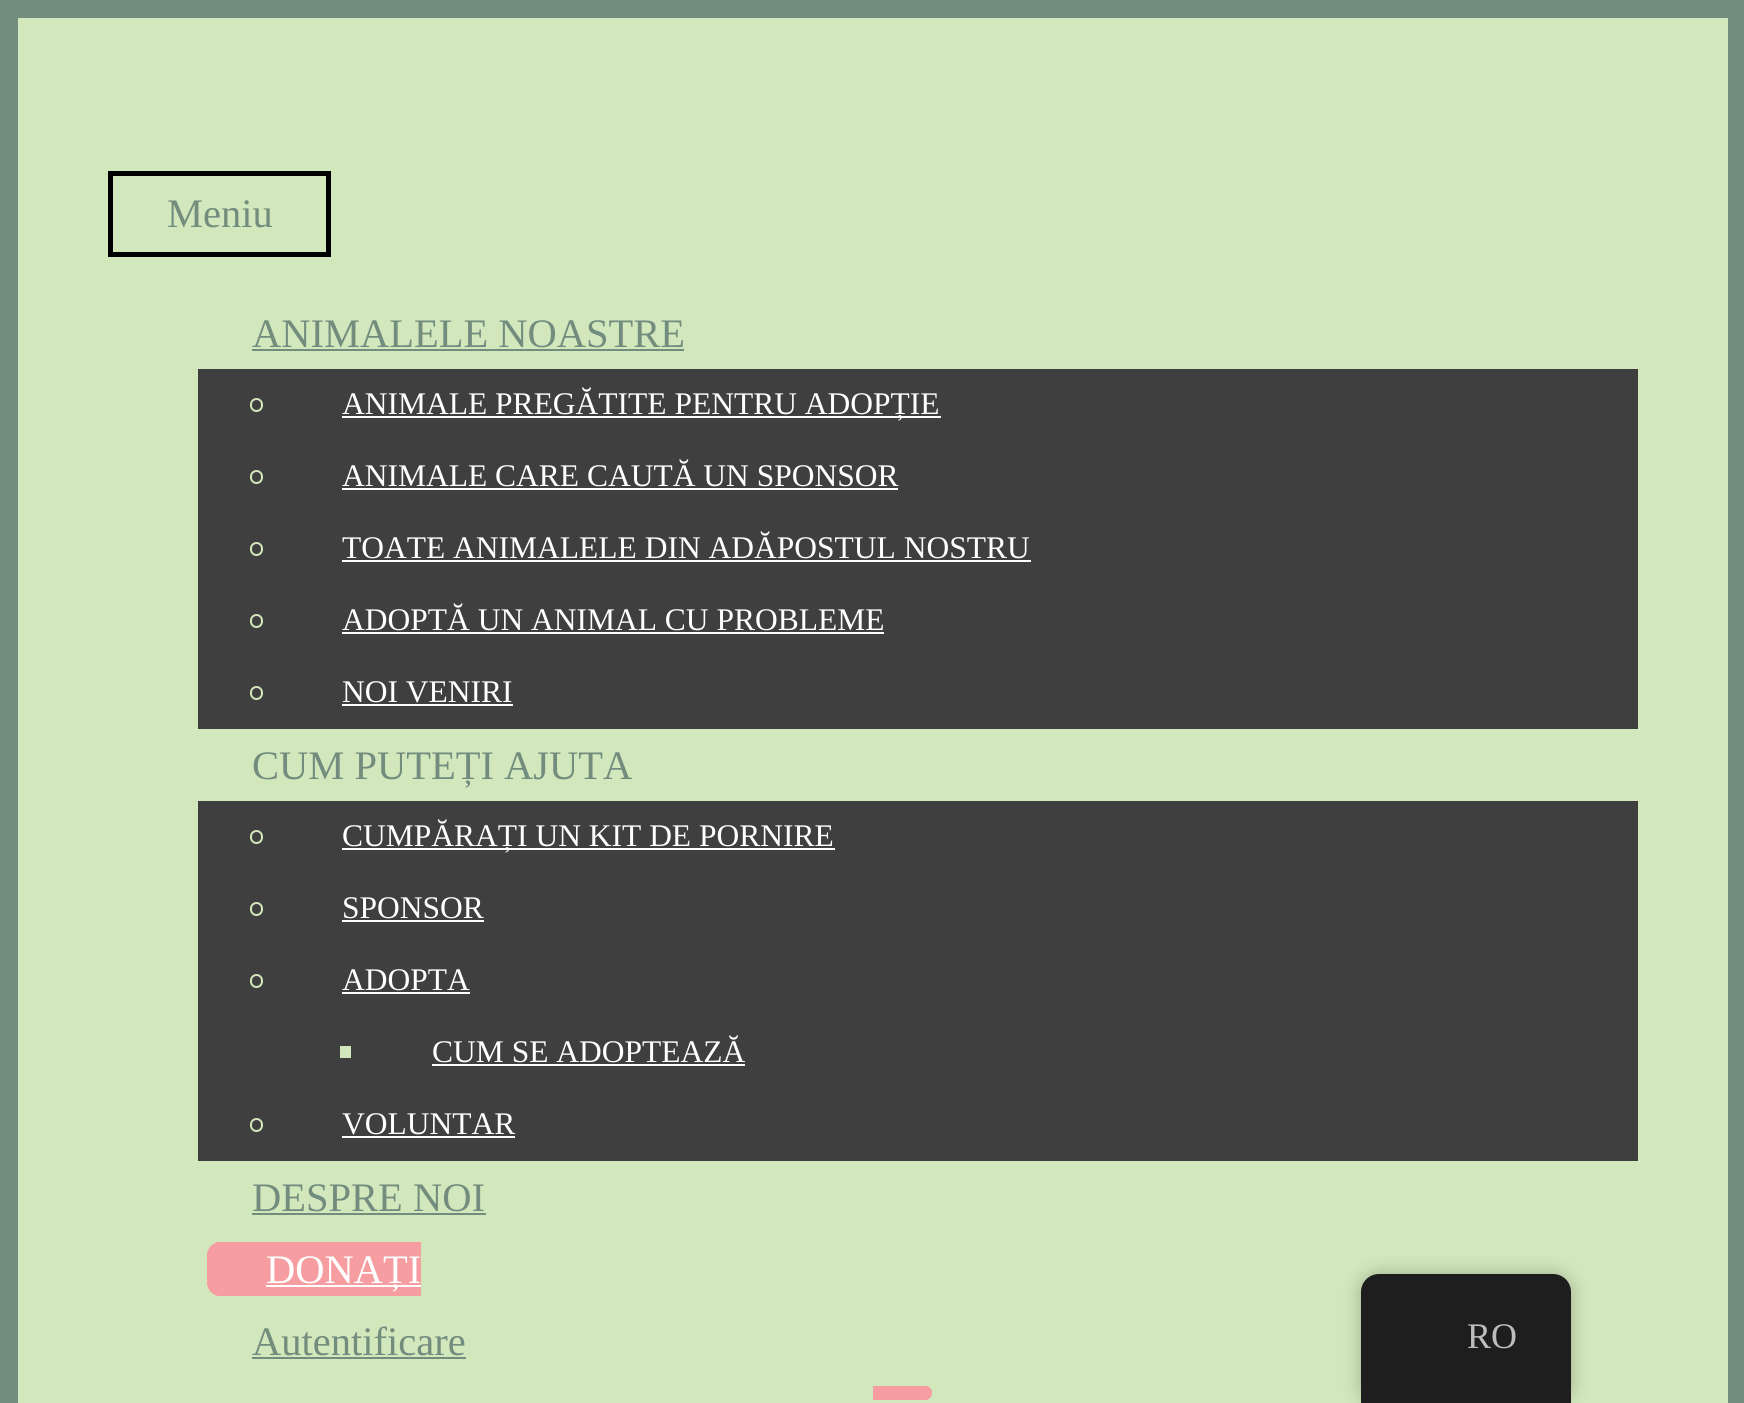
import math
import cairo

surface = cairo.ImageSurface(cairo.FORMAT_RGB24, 1744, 1403)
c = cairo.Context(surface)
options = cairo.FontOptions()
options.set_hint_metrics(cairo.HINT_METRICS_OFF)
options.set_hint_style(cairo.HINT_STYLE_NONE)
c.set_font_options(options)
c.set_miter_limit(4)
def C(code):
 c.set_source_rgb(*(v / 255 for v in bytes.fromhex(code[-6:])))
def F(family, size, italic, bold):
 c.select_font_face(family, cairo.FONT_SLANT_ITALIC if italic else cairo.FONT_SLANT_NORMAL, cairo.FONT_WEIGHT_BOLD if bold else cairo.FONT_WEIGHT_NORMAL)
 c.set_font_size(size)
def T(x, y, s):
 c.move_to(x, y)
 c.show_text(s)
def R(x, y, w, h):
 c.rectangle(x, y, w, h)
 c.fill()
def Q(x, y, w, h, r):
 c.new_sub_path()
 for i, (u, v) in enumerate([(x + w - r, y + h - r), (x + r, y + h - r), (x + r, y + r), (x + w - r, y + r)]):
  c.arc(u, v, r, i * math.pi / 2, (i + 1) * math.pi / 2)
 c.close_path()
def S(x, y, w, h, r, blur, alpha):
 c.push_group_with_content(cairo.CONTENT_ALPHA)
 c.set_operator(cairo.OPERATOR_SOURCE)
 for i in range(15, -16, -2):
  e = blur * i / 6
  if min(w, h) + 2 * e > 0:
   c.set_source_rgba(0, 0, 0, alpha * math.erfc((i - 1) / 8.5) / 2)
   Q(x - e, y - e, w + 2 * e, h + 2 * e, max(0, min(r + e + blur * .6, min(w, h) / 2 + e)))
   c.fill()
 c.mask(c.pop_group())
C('728c7e')
c.paint()
C('d2e7bc')
R(18,18,1710,1385)
c.rectangle(110.5,173.5,218,81)
C('000000')
c.set_line_width(5)
c.stroke()
F('Liberation Serif',40.5,0,0)
C('728c7e')
T(167,227,'Meniu')
T(252,347,'ANIMALELE NOASTRE')
R(252,349,432,2)
C('3f3f3f')
R(198,369,1440,360)
Q(251,399,11,12,5.5)
C('d2e7bc')
c.set_line_width(2)
c.stroke()
C('ffffff')
R(342,416,599,2)
F('Liberation Serif',31.5,0,0)
T(342,414,'ANIMALE PREGĂTITE PENTRU ADOPȚIE')
Q(251,471,11,12,5.5)
C('d2e7bc')
c.stroke()
C('ffffff')
T(342,486,'ANIMALE CARE CAUTĂ UN SPONSOR')
R(342,488,556,2)
Q(251,543,11,12,5.5)
C('d2e7bc')
c.stroke()
C('ffffff')
T(342,558,'TOATE ANIMALELE DIN ADĂPOSTUL NOSTRU')
R(342,560,689,2)
Q(251,615,11,12,5.5)
C('d2e7bc')
c.stroke()
C('ffffff')
T(342,630,'ADOPTĂ UN ANIMAL CU PROBLEME')
R(342,632,542,2)
Q(251,687,11,12,5.5)
C('d2e7bc')
c.stroke()
C('ffffff')
T(342,702,'NOI VENIRI')
R(342,704,171,2)
F('Liberation Serif',40.5,0,0)
C('728c7e')
T(252,779,'CUM PUTEȚI AJUTA')
C('3f3f3f')
R(198,801,1440,360)
Q(251,831,11,12,5.5)
C('d2e7bc')
c.stroke()
C('ffffff')
R(342,848,493,2)
F('Liberation Serif',31.5,0,0)
T(342,846,'CUMPĂRAȚI UN KIT DE PORNIRE')
Q(251,903,11,12,5.5)
C('d2e7bc')
c.stroke()
C('ffffff')
T(342,918,'SPONSOR')
R(342,920,142,2)
Q(251,975,11,12,5.5)
C('d2e7bc')
c.stroke()
C('ffffff')
T(342,990,'ADOPTA')
R(342,992,128,2)
C('d2e7bc')
R(340,1046,11,12)
C('ffffff')
T(432,1062,'CUM SE ADOPTEAZĂ')
R(432,1064,313,2)
Q(251,1119,11,12,5.5)
C('d2e7bc')
c.stroke()
C('ffffff')
T(342,1134,'VOLUNTAR')
R(342,1136,173,2)
F('Liberation Serif',40.5,0,0)
C('728c7e')
T(252,1211,'DESPRE NOI')
R(252,1213,234,2)
C('f69da1')
c.new_path()
c.move_to(221,1242)
c.line_to(421,1242)
c.line_to(421,1296)
c.line_to(221,1296)
c.curve_to(213.5,1296,207,1289.5,207,1282)
c.line_to(207,1256)
c.curve_to(207,1248.5,213.5,1242,221,1242)
c.close_path()
c.fill()
c.set_fill_rule(cairo.FILL_RULE_EVEN_ODD)
c.new_path()
c.move_to(220,1242)
c.line_to(421,1242)
c.line_to(421,1296)
c.line_to(220,1296)
c.curve_to(213,1296,207,1290,207,1282)
c.line_to(207,1256)
c.curve_to(207,1248,213,1242,220,1242)
c.close_path()
c.move_to(220,1246)
c.line_to(421,1246)
c.line_to(421,1292)
c.line_to(220,1292)
c.curve_to(216,1292,212,1287,212,1282)
c.line_to(212,1256)
c.curve_to(212,1251,216,1246,220,1246)
c.close_path()
c.fill()
C('ffffff')
R(266,1285,155,2)
T(266,1283,'DONAȚI')
C('f69da1')
c.new_path()
c.move_to(873,1386)
c.line_to(925,1386)
c.curve_to(929,1386,932,1389,932,1393)
c.curve_to(932,1397,929,1400,925,1400)
c.line_to(873,1400)
c.close_path()
c.fill()
c.new_path()
c.move_to(873,1386)
c.line_to(925,1386)
c.curve_to(928,1386,932,1389,932,1393)
c.curve_to(932,1396,928,1400,925,1400)
c.line_to(873,1400)
c.close_path()
c.move_to(873,1390)
c.line_to(925,1390)
c.curve_to(926,1391,927,1392,927,1394)
c.line_to(925,1395)
c.line_to(873,1395)
c.close_path()
c.fill()
C('728c7e')
T(252,1355,'Autentificare')
R(252,1357,214,2)
C('000000')
S(1361,1274,210,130,18,9,.25)
C('1e1e1e')
c.new_path()
c.move_to(1379,1274)
c.line_to(1553,1274)
c.curve_to(1563,1274,1571,1282,1571,1292)
c.line_to(1571,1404)
c.line_to(1361,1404)
c.line_to(1361,1292)
c.curve_to(1361,1282,1369,1274,1379,1274)
c.close_path()
c.fill()
F('Liberation Serif',36,0,0)
C('bdbdbd')
T(1467,1348,'RO')
surface.write_to_png('o.png')
